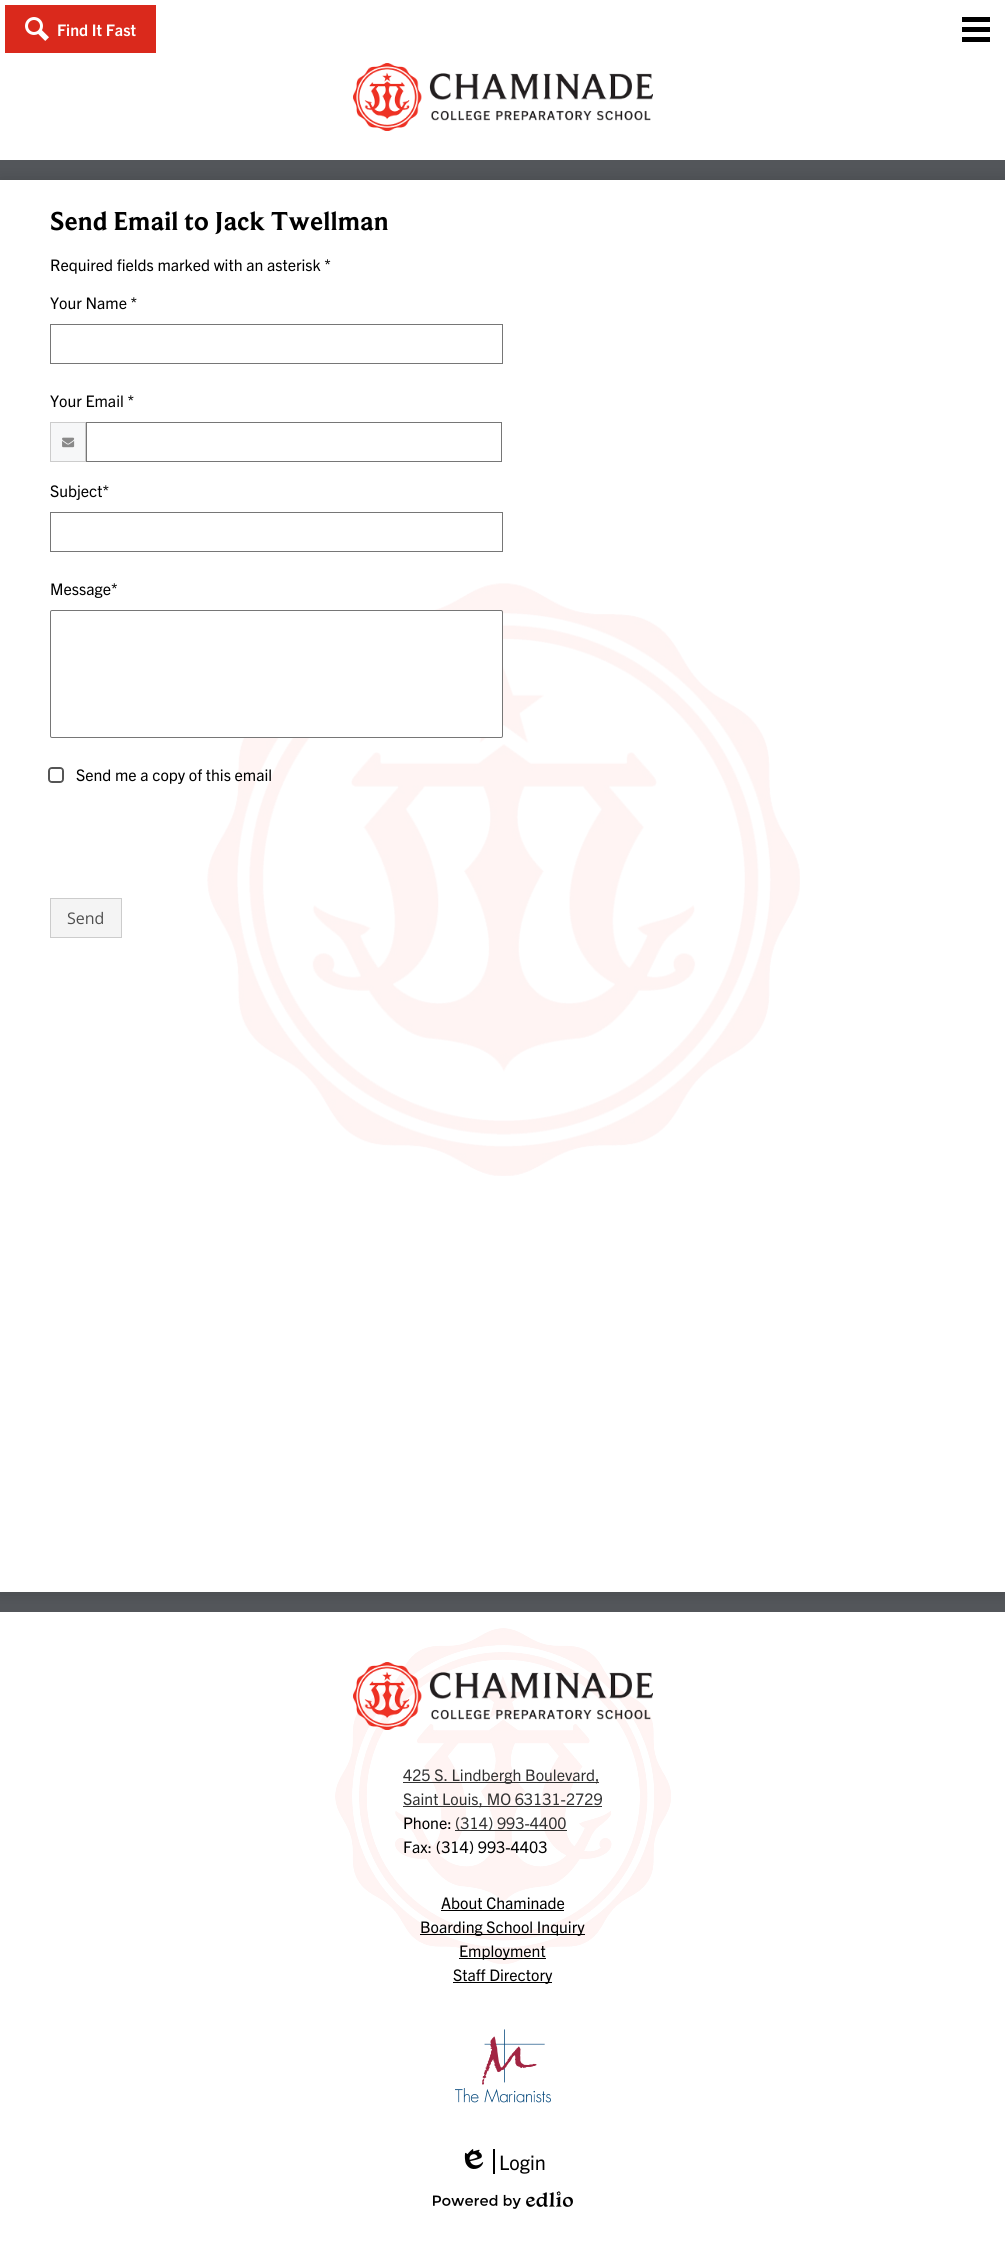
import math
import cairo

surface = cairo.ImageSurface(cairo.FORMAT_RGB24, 1005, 2260)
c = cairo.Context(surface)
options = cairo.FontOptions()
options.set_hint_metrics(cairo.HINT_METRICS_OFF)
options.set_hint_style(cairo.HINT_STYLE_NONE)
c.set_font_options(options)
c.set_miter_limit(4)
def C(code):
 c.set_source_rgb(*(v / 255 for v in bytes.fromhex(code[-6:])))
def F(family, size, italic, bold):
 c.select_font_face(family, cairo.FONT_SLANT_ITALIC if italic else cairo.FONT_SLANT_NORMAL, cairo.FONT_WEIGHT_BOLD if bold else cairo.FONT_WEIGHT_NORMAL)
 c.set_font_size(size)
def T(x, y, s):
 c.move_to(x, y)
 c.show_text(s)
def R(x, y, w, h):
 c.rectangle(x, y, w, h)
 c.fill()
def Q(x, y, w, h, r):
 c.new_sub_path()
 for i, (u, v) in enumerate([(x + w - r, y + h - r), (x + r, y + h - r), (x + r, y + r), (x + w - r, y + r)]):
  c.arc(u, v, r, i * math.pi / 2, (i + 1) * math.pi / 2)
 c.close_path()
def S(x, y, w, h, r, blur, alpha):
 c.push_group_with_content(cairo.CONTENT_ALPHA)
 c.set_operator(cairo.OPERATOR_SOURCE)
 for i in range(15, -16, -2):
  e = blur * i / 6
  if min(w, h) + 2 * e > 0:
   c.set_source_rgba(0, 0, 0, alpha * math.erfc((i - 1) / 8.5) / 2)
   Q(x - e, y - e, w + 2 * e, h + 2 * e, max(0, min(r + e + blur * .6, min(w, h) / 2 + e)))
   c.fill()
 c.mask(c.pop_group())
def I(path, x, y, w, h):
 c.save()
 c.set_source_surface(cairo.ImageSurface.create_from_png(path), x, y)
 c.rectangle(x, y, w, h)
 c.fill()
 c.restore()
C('53565a')
c.paint()
C('000000')
S(0,180,1005,1412,0,8,.15)
C('ffffff')
R(0,0,1005,160)
C('da291c')
R(5,5,151,48)
I('1.png',25,17,24,24)
F('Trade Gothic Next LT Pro',16,0,1)
C('ffffff')
T(57,36,'Find It Fast')
C('000000')
R(962,17,28,5)
R(962,27,28,5)
R(962,37,28,5)
I('2.png',353,63,300,68)
C('ffffff')
R(0,180,1005,1412)
I('3.png',207,583,593,593)
F('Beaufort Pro',27,0,1)
C('000000')
T(50,230,'Send Email to Jack Twellman')
F('Trade Gothic Next LT Pro',16,0,0)
T(50,271,'Required fields marked with an asterisk *')
T(50,309,'Your Name *')
c.rectangle(50.5,324.5,452,39)
C('767676')
c.set_line_width(1)
c.stroke()
C('000000')
T(50,407,'Your Email *')
C('f6f7f8')
c.rectangle(50.5,422.5,35,39)
c.fill_preserve()
C('cccccc')
c.stroke()
I('4.png',62,437,13,11)
c.rectangle(86.5,422.5,415,39)
C('767676')
c.stroke()
C('000000')
T(50,497,'Subject*')
c.rectangle(50.5,512.5,452,39)
C('767676')
c.stroke()
C('000000')
T(50,595,'Message*')
C('ffffff')
Q(50.5,610.5,452,127,1.5)
c.fill_preserve()
C('767676')
c.stroke()
Q(49,768,14,14,3)
C('555555')
c.set_line_width(2)
c.stroke()
C('ffffff')
Q(50,769,12,12,2)
c.fill()
C('000000')
T(76,781,'Send me a copy of this email')
C('f4f4f4')
c.rectangle(50.5,898.5,71,39)
c.fill_preserve()
C('cccccc')
c.set_line_width(1)
c.stroke()
F('Open Sans',16,0,0)
C('4f4f4f')
T(67,924,'Send')
C('ffffff')
R(0,1612,1005,648)
I('5.png',335,1628,336,336)
I('6.png',353,1662,300,68)
C('333333')
R(403,1782,196,1)
F('Trade Gothic Next LT Pro',16,0,0)
T(403,1781,'425 S. Lindbergh Boulevard,')
R(403,1806,199,1)
T(403,1805,'Saint Louis, MO 63131-2729')
C('000000')
T(403,1829,'Phone:')
C('333333')
T(455,1829,'(314) 993-4400')
R(455,1830,112,1)
C('000000')
T(403,1853,'Fax: (314) 993-4403')
T(441,1909,'About Chaminade')
R(441,1910,123,1)
R(420,1934,165,1)
T(420,1933,'Boarding School Inquiry')
R(459,1958,87,1)
T(459,1957,'Employment')
R(453,1982,99,1)
T(453,1981,'Staff Directory')
I('7.png',455,2029,96,74)
R(493,2149,2,25)
I('8.png',464,2149,20,20)
F('Trade Gothic Next LT Pro',20,0,0)
T(499,2170,'Login')
I('9.png',433,2191,140,18)
surface.write_to_png('o.png')
